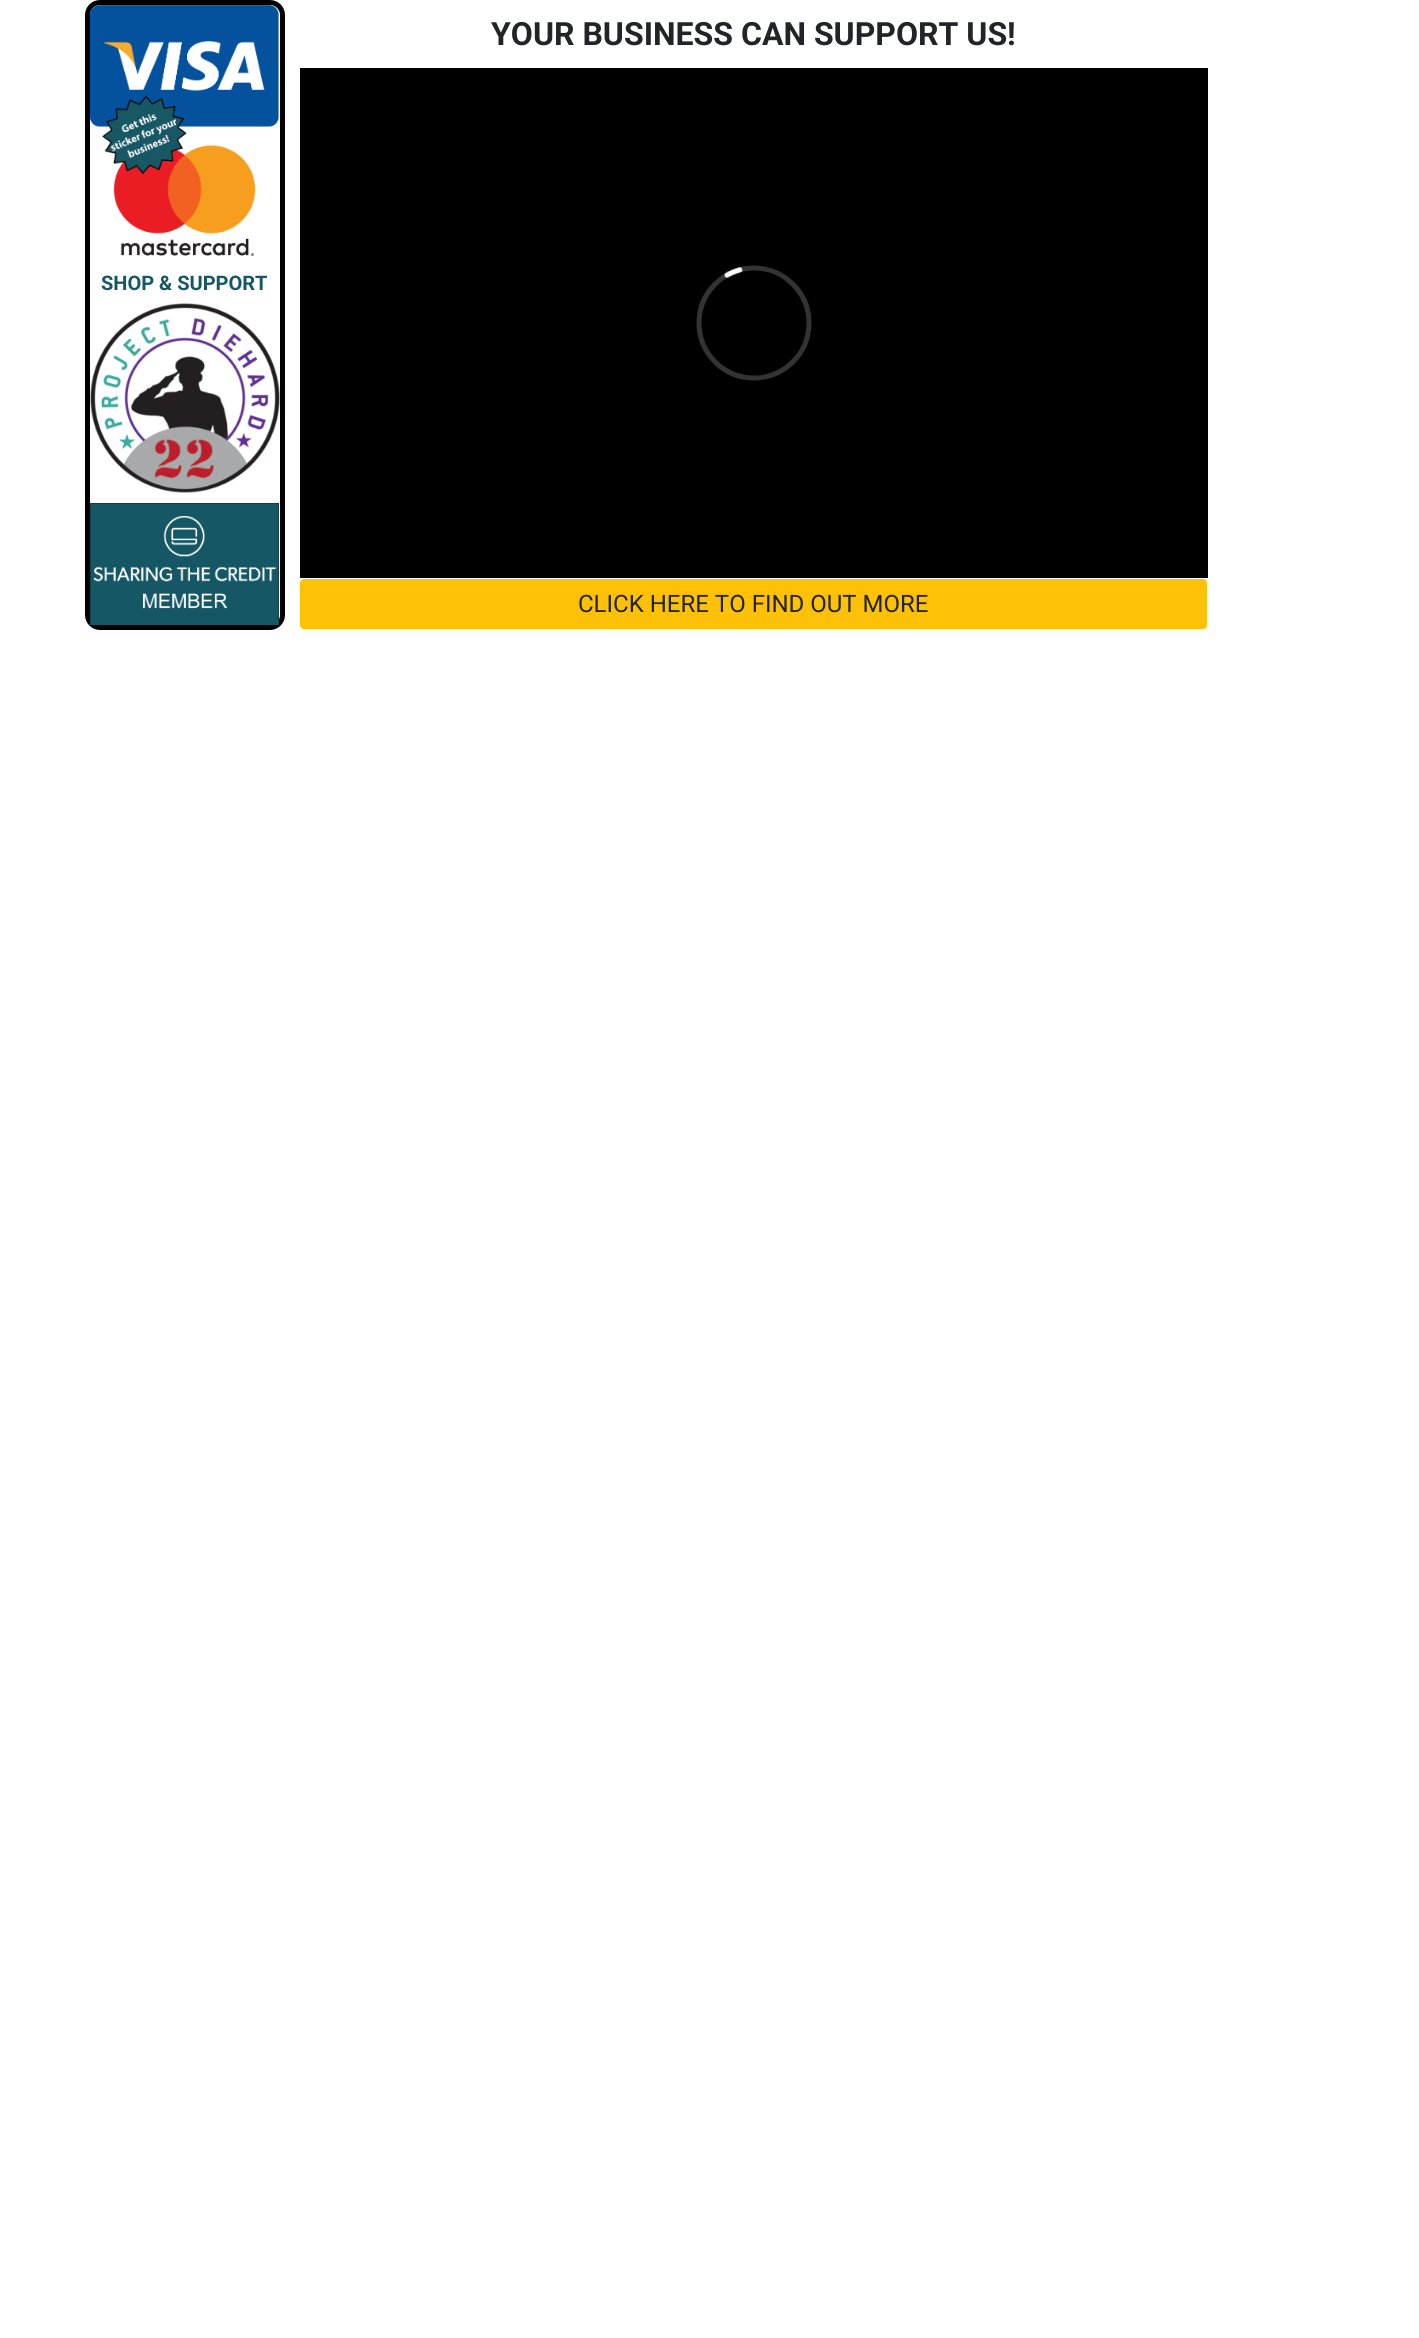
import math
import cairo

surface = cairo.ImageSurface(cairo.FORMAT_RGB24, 1419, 2338)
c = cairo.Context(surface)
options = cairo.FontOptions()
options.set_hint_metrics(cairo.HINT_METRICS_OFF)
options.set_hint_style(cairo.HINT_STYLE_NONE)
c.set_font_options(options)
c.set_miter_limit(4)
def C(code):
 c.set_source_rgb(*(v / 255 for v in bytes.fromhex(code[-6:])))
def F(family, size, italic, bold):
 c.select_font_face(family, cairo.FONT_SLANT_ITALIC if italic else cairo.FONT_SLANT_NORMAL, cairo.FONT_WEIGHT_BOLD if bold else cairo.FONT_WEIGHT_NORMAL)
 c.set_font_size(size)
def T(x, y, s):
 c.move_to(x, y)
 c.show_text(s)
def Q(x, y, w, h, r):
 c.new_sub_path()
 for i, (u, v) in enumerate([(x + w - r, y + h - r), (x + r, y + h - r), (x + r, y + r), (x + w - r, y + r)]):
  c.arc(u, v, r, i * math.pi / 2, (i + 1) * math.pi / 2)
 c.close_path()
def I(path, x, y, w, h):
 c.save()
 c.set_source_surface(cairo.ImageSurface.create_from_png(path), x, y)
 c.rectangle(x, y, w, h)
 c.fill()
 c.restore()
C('ffffff')
c.paint()
Q(87.5,2.5,195,625,12.5)
C('000000')
c.set_line_width(5)
c.stroke()
I('1.png',90,5,189,251)
F('Roboto',20,0,1)
C('155764')
T(101,290,'SHOP & SUPPORT')
I('2.png',90,303,190,190)
I('3.png',90,503,189,122)
F('Roboto',32,0,1)
C('212529')
T(491,45,'YOUR BUSINESS CAN SUPPORT US!')
I('4.png',300,68,908,510)
C('ffc107')
Q(300.5,579.5,906,49,3.5)
c.fill_preserve()
c.set_line_width(1)
c.stroke()
F('Roboto',24,0,0)
C('212529')
T(578,612,'CLICK HERE TO FIND OUT MORE')
surface.write_to_png('o.png')
